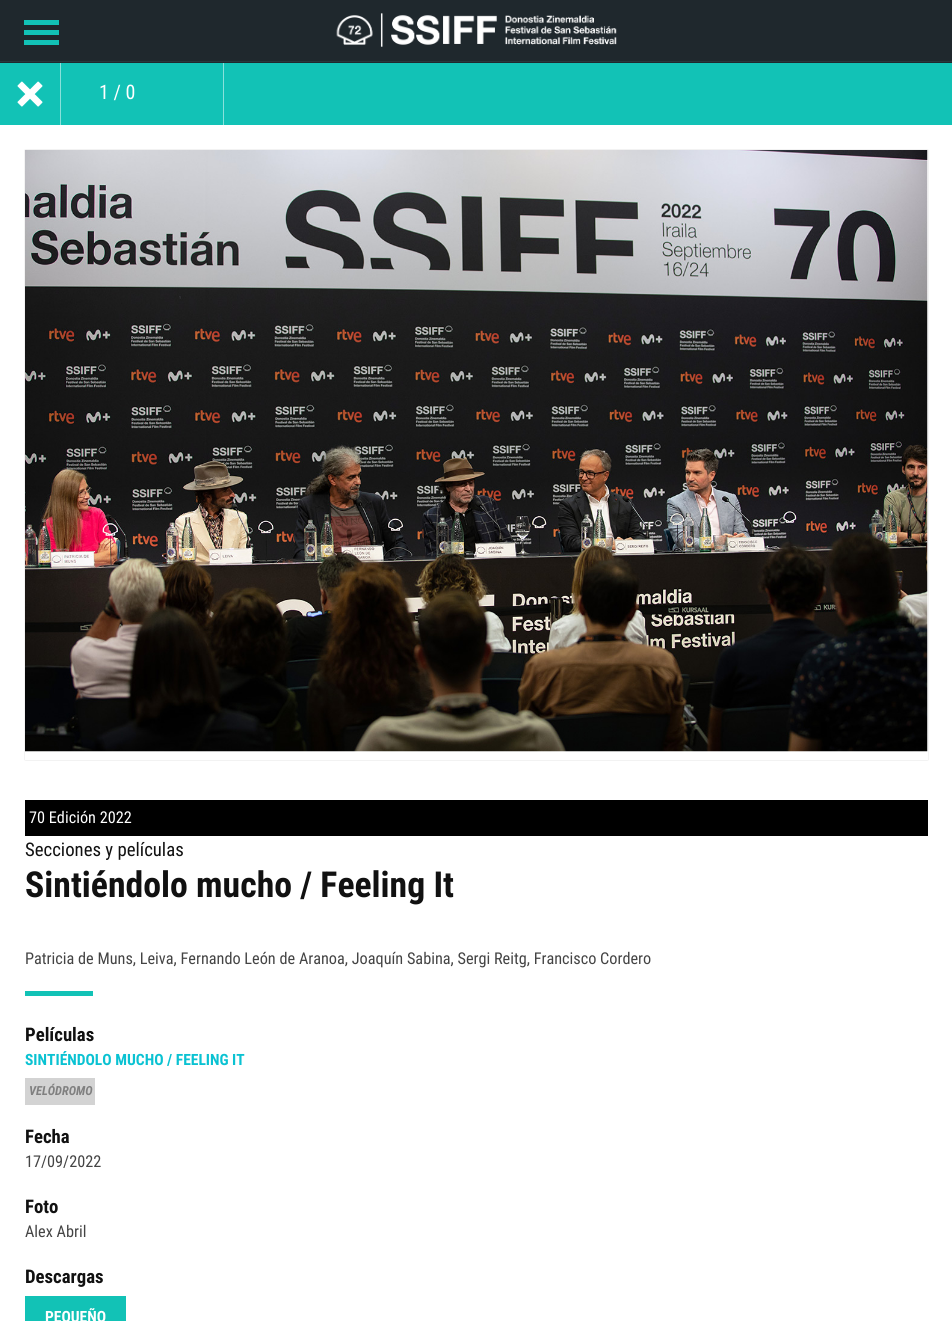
import math
import cairo

surface = cairo.ImageSurface(cairo.FORMAT_RGB24, 952, 1321)
c = cairo.Context(surface)
options = cairo.FontOptions()
options.set_hint_metrics(cairo.HINT_METRICS_OFF)
options.set_hint_style(cairo.HINT_STYLE_NONE)
c.set_font_options(options)
c.set_miter_limit(4)
def C(code):
 c.set_source_rgb(*(v / 255 for v in bytes.fromhex(code[-6:])))
def F(family, size, italic, bold):
 c.select_font_face(family, cairo.FONT_SLANT_ITALIC if italic else cairo.FONT_SLANT_NORMAL, cairo.FONT_WEIGHT_BOLD if bold else cairo.FONT_WEIGHT_NORMAL)
 c.set_font_size(size)
def T(x, y, s):
 c.move_to(x, y)
 c.show_text(s)
def R(x, y, w, h):
 c.rectangle(x, y, w, h)
 c.fill()
def Q(x, y, w, h, r):
 c.new_sub_path()
 for i, (u, v) in enumerate([(x + w - r, y + h - r), (x + r, y + h - r), (x + r, y + r), (x + w - r, y + r)]):
  c.arc(u, v, r, i * math.pi / 2, (i + 1) * math.pi / 2)
 c.close_path()
def S(x, y, w, h, r, blur, alpha):
 c.push_group_with_content(cairo.CONTENT_ALPHA)
 c.set_operator(cairo.OPERATOR_SOURCE)
 for i in range(15, -16, -2):
  e = blur * i / 6
  if min(w, h) + 2 * e > 0:
   c.set_source_rgba(0, 0, 0, alpha * math.erfc((i - 1) / 8.5) / 2)
   Q(x - e, y - e, w + 2 * e, h + 2 * e, max(0, min(r + e + blur * .6, min(w, h) / 2 + e)))
   c.fill()
 c.mask(c.pop_group())
def I(path, x, y, w, h):
 c.save()
 c.set_source_surface(cairo.ImageSurface.create_from_png(path), x, y)
 c.rectangle(x, y, w, h)
 c.fill()
 c.restore()
C('ffffff')
c.paint()
C('1f282d')
R(0,0,952,63)
C('27373c')
R(0,61,952,1)
C('12c2b6')
R(24,20,35,5)
R(24,30,35,5)
R(24,40,35,5)
I('1.png',336,13,281,34)
R(0,63,952,62)
C('89e1db')
R(60,63,1,62)
I('2.png',17,81,26,26)
F('Roboto Condensed',20,0,0)
C('ffffff')
T(99,99,'1 / 0')
C('89e1db')
R(223,63,1,62)
c.save()
c.set_fill_rule(cairo.FILL_RULE_EVEN_ODD)
c.new_path()
c.move_to(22,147)
c.line_to(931,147)
c.line_to(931,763)
c.line_to(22,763)
c.close_path()
c.move_to(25,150)
c.line_to(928,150)
c.line_to(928,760)
c.line_to(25,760)
c.close_path()
c.clip()
C('000000')
S(25,150,903,610,0,.5,.2)
c.restore()
I('3.png',25,150,903,602)
C('000000')
R(25,800,903,36)
F('Roboto Condensed',16.25,0,0)
C('ffffff')
T(29,823,'70 Edición 2022')
F('Roboto Condensed',18.75,0,0)
C('111111')
T(25,856,'Secciones y películas')
F('Roboto Condensed',35.75,0,1)
T(25,897,'Sintiéndolo mucho / Feeling It')
F('Roboto Condensed',16.25,0,0)
C('444444')
T(25,964,'Patricia de Muns, Leiva, Fernando León de Aranoa, Joaquín Sabina, Sergi Reitg, Francisco Cordero')
C('12c2b6')
R(25,991,68,5)
F('Roboto Condensed',18.75,0,1)
C('111111')
T(25,1041,'Películas')
F('Roboto Condensed',15.5,0,1)
C('0ac2d2')
T(25,1065,'SINTIÉNDOLO MUCHO / FEELING IT')
C('d3d3d3')
R(25,1078,70,27)
F('Roboto Condensed',12.5,1,1)
C('808080')
T(29,1095,'VELÓDROMO')
F('Roboto Condensed',18.75,0,1)
C('111111')
T(25,1143,'Fecha')
F('Roboto Condensed',16.25,0,0)
C('444444')
T(25,1167,'17/09/2022')
F('Roboto Condensed',18.75,0,1)
C('111111')
T(25,1213,'Foto')
F('Roboto Condensed',16.25,0,0)
C('444444')
T(25,1237,'Alex Abril')
F('Roboto Condensed',18.75,0,1)
C('111111')
T(25,1283,'Descargas')
C('12c2b6')
R(25,1296,101,25)
F('Roboto Condensed',15.5,0,1)
C('ffffff')
T(45,1322,'PEQUEÑO')
surface.write_to_png('o.png')
